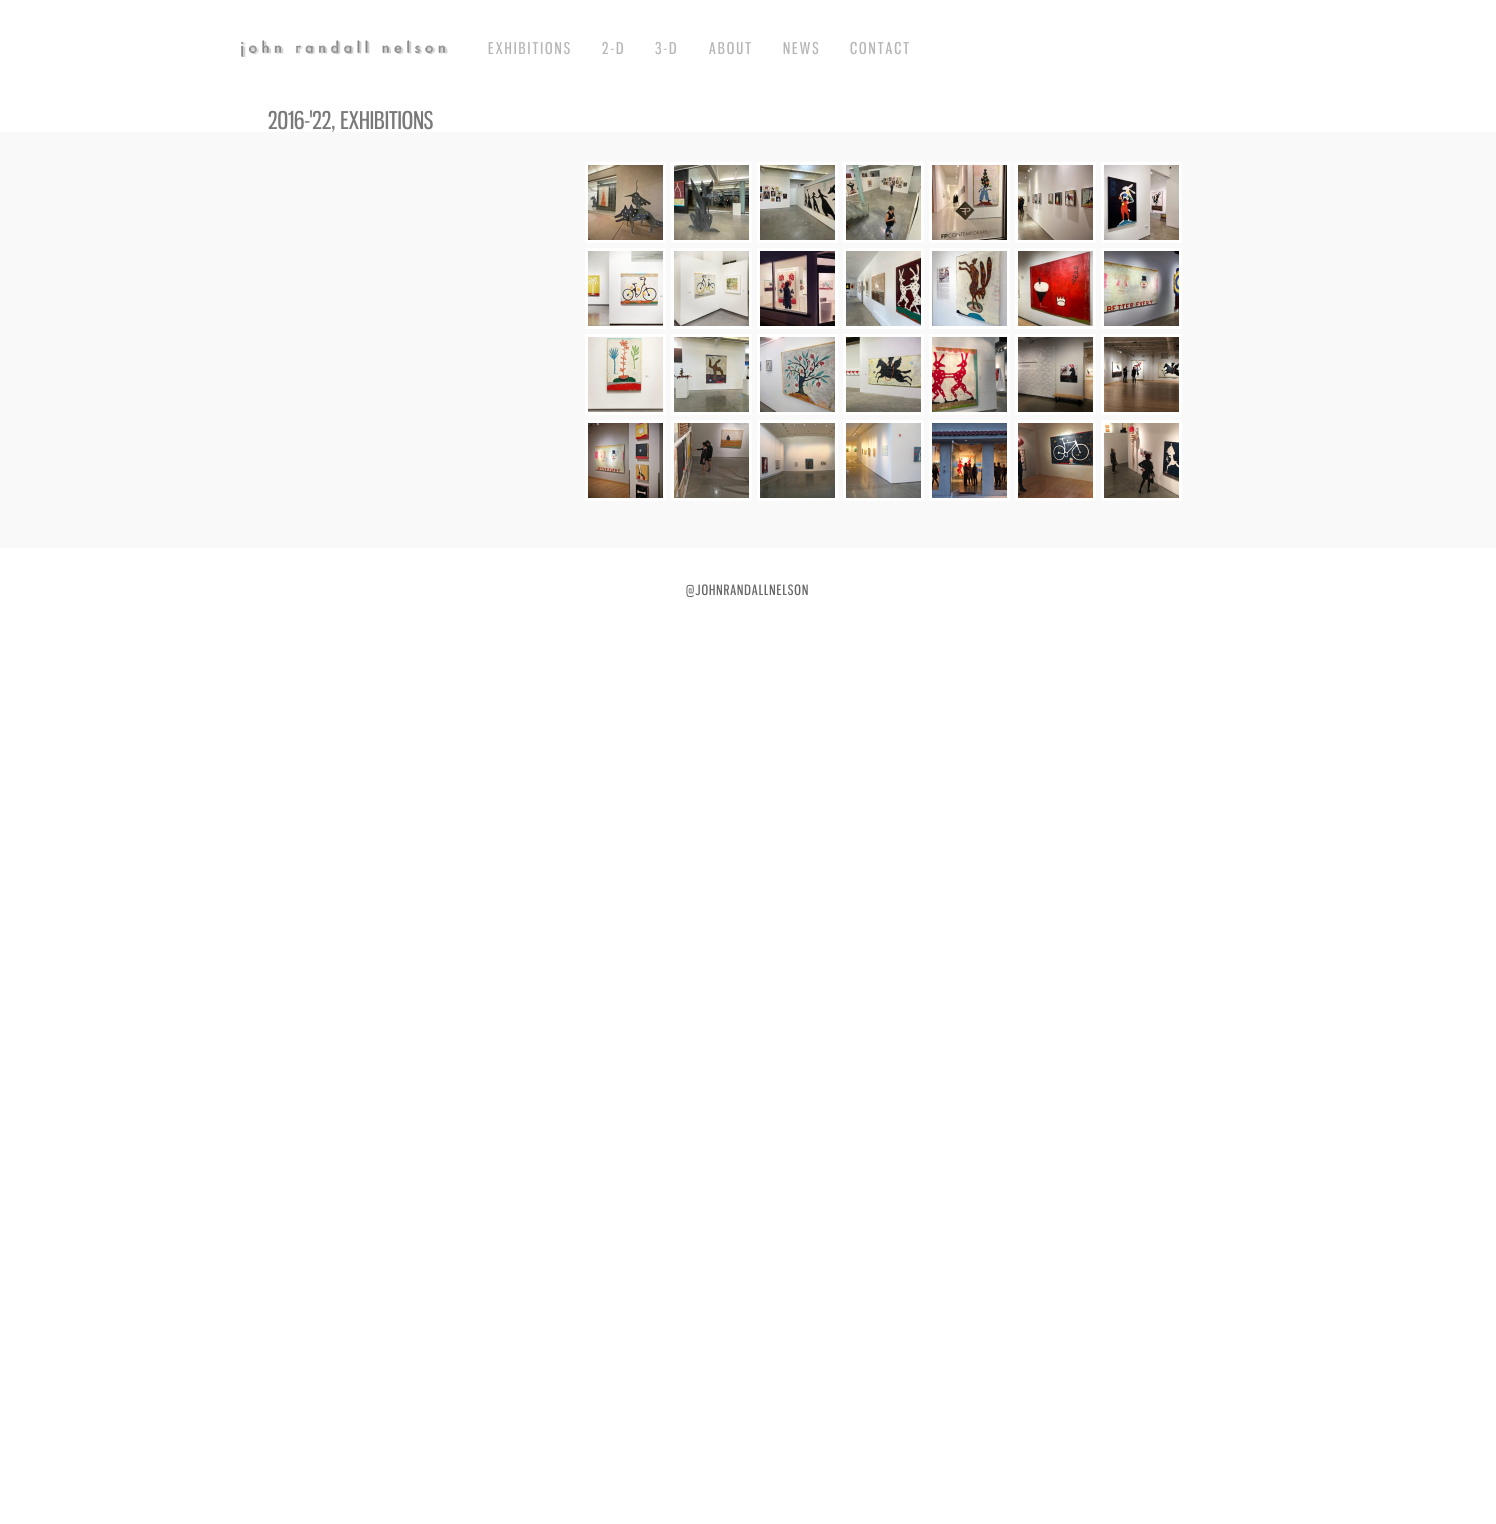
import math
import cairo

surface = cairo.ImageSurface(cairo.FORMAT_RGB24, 1496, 1524)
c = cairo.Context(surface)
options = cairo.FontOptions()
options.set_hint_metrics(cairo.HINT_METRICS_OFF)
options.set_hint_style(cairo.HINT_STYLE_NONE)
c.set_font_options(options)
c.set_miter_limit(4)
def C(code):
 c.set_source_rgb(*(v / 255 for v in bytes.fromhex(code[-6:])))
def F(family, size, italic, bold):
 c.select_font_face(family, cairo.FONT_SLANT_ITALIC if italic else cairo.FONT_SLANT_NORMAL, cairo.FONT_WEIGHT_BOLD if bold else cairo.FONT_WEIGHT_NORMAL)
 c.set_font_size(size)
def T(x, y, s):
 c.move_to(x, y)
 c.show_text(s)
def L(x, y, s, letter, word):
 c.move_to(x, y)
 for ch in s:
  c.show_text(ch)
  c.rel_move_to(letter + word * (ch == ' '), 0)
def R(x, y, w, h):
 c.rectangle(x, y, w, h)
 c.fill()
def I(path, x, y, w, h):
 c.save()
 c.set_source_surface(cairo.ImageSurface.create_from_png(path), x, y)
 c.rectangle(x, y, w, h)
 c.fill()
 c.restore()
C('ffffff')
c.paint()
I('1.png',241,40,207,17)
F('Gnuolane',16,0,0)
C('b7b7b7')
L(488,54,'EXHIBITIONS',2,0)
L(602,54,'2-D',2,0)
L(655,54,'3-D',2,0)
L(709,54,'ABOUT',2,0)
L(783,54,'NEWS',2,0)
L(850,54,'CONTACT',2,0)
F('Gnuolane',24,0,0)
C('797979')
T(268,129,'2016-\'22, EXHIBITIONS')
C('f9f9f9')
R(0,132,1496,416)
c.rectangle(586.5,163.5,78,78)
C('ffffff')
c.set_line_width(3)
c.stroke()
I('2.png',588,165,75,75)
c.rectangle(672.5,163.5,78,78)
c.stroke()
I('3.png',674,165,75,75)
c.rectangle(758.5,163.5,78,78)
c.stroke()
I('4.png',760,165,75,75)
c.rectangle(844.5,163.5,78,78)
c.stroke()
I('5.png',846,165,75,75)
c.rectangle(930.5,163.5,78,78)
c.stroke()
I('6.png',932,165,75,75)
c.rectangle(1016.5,163.5,78,78)
c.stroke()
I('7.png',1018,165,75,75)
c.rectangle(1102.5,163.5,78,78)
c.stroke()
I('8.png',1104,165,75,75)
c.rectangle(586.5,249.5,78,78)
c.stroke()
I('9.png',588,251,75,75)
c.rectangle(672.5,249.5,78,78)
c.stroke()
I('10.png',674,251,75,75)
c.rectangle(758.5,249.5,78,78)
c.stroke()
I('11.png',760,251,75,75)
c.rectangle(844.5,249.5,78,78)
c.stroke()
I('12.png',846,251,75,75)
c.rectangle(930.5,249.5,78,78)
c.stroke()
I('13.png',932,251,75,75)
c.rectangle(1016.5,249.5,78,78)
c.stroke()
I('14.png',1018,251,75,75)
c.rectangle(1102.5,249.5,78,78)
c.stroke()
I('15.png',1104,251,75,75)
c.rectangle(586.5,335.5,78,78)
c.stroke()
I('16.png',588,337,75,75)
c.rectangle(672.5,335.5,78,78)
c.stroke()
I('17.png',674,337,75,75)
c.rectangle(758.5,335.5,78,78)
c.stroke()
I('18.png',760,337,75,75)
c.rectangle(844.5,335.5,78,78)
c.stroke()
I('19.png',846,337,75,75)
c.rectangle(930.5,335.5,78,78)
c.stroke()
I('20.png',932,337,75,75)
c.rectangle(1016.5,335.5,78,78)
c.stroke()
I('21.png',1018,337,75,75)
c.rectangle(1102.5,335.5,78,78)
c.stroke()
I('22.png',1104,337,75,75)
c.rectangle(586.5,421.5,78,78)
c.stroke()
I('23.png',588,423,75,75)
c.rectangle(672.5,421.5,78,78)
c.stroke()
I('24.png',674,423,75,75)
c.rectangle(758.5,421.5,78,78)
c.stroke()
I('25.png',760,423,75,75)
c.rectangle(844.5,421.5,78,78)
c.stroke()
I('26.png',846,423,75,75)
c.rectangle(930.5,421.5,78,78)
c.stroke()
I('27.png',932,423,75,75)
c.rectangle(1016.5,421.5,78,78)
c.stroke()
I('28.png',1018,423,75,75)
c.rectangle(1102.5,421.5,78,78)
c.stroke()
I('29.png',1104,423,75,75)
F('Gnuolane',14,0,0)
C('666666')
L(686,595,'@JOHNRANDALLNELSON',1,0)
surface.write_to_png('o.png')
